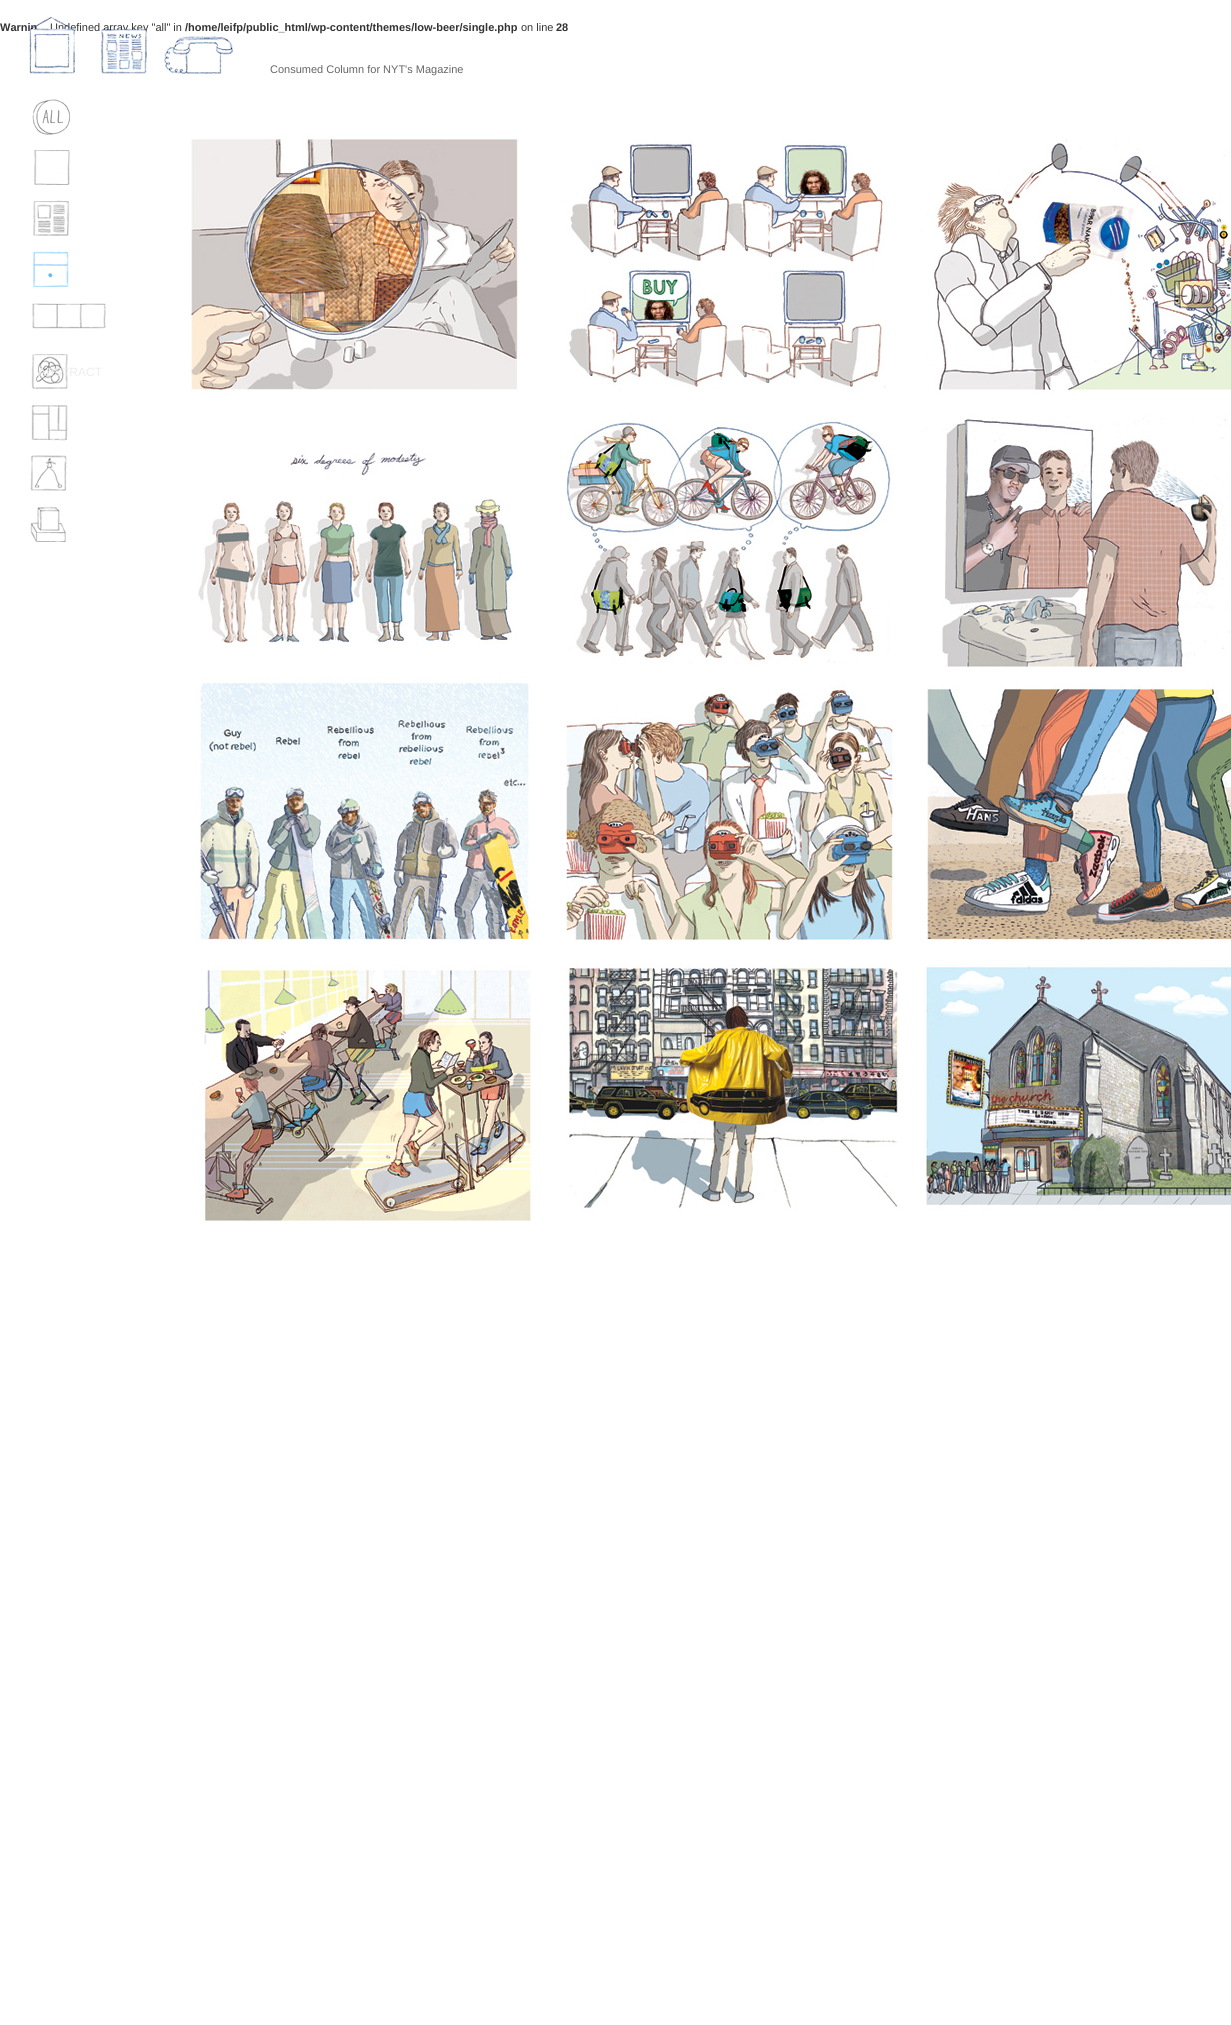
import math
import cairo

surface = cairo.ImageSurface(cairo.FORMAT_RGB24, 1231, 2025)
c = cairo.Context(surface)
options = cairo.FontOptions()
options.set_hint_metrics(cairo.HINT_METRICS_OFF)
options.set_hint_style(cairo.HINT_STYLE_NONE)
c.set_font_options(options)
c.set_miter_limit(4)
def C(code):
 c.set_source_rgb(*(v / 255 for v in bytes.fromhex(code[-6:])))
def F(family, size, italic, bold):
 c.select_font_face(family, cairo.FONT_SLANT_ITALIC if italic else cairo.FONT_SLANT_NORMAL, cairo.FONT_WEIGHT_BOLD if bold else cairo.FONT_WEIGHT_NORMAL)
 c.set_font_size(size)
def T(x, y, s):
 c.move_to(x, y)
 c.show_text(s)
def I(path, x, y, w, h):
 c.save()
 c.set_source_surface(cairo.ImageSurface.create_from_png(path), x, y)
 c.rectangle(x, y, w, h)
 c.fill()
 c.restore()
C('ffffff')
c.paint()
F('Liberation Sans',11,0,1)
C('333333')
T(0,31,'Warnin')
F('Liberation Sans',11,0,0)
T(50,31,'Undefined array key "all" in')
F('Liberation Sans',11,0,1)
T(185,31,'/home/leifp/public_html/wp-content/themes/low-beer/single.php')
F('Liberation Sans',11,0,0)
T(521,31,'on line')
F('Liberation Sans',11,0,1)
T(556,31,'28')
F('Liberation Sans',11,0,0)
C('666666')
T(270,73,'Consumed Column for NYT\'s Magazine')
I('1.png',101,28,46,46)
I('2.png',164,36,70,38)
I('3.png',29,17,46,57)
I('4.png',32,99,38,36)
I('5.png',34,150,36,35)
I('6.png',33,200,37,36)
I('7.png',33,251,36,36)
I('8.png',32,303,74,26)
I('9.png',31,354,37,35)
F('Liberation Sans',12,0,0)
C('ededed')
T(38,376,'ABSTRACT')
I('10.png',31,405,37,36)
I('11.png',30,455,37,36)
I('12.png',30,507,36,35)
I('13.png',190,133,1041,1089)
surface.write_to_png('o.png')
